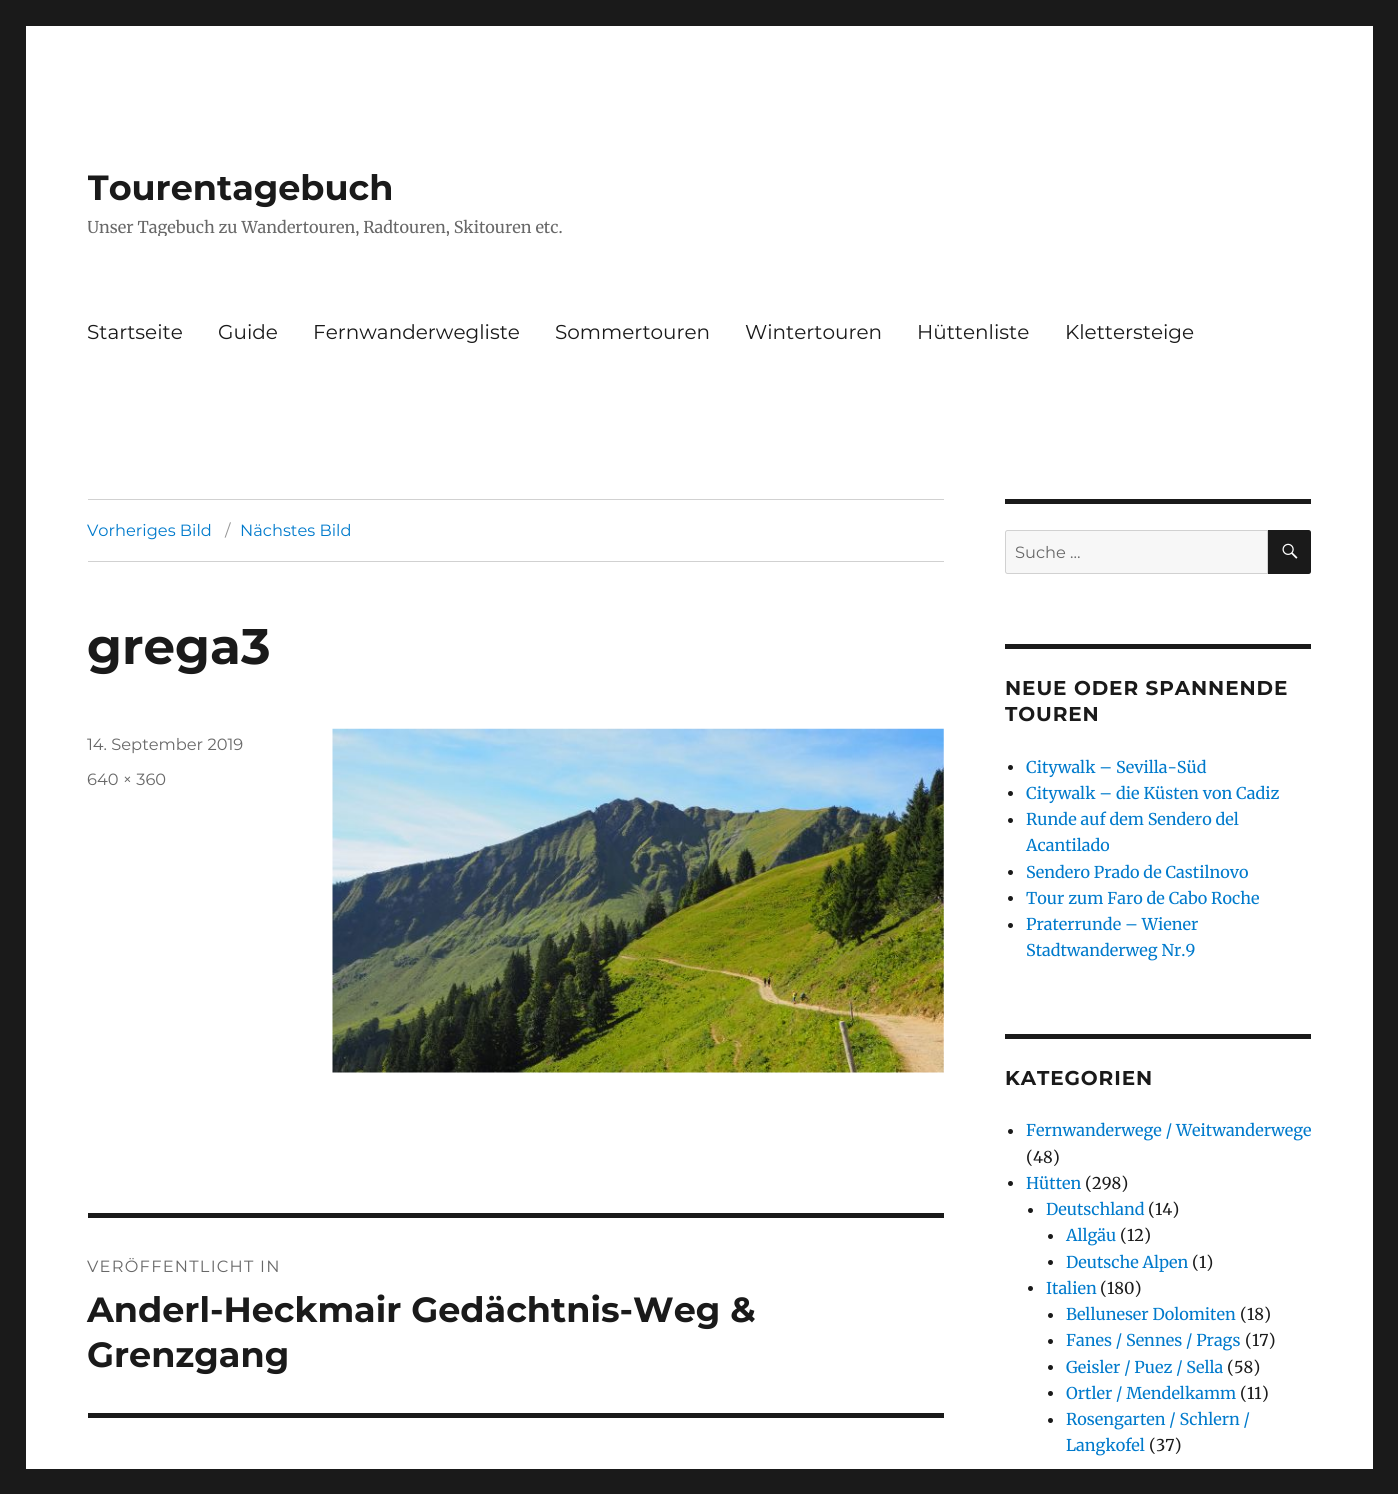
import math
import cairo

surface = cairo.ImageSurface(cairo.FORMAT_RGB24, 1398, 1494)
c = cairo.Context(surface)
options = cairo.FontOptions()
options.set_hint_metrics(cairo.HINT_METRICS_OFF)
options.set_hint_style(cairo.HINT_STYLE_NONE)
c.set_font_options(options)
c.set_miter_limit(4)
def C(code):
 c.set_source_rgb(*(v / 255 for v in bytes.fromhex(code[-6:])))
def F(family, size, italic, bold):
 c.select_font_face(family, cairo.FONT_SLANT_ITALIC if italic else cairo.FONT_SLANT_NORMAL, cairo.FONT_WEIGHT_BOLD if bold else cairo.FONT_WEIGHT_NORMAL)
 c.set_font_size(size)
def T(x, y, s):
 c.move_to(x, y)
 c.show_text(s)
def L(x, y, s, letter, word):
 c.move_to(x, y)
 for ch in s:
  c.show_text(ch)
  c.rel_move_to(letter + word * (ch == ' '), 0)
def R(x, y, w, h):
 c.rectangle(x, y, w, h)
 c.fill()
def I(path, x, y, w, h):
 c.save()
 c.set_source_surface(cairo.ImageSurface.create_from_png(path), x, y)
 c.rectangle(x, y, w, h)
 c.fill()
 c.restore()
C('1a1a1a')
c.paint()
C('ffffff')
R(26,26,1347,1443)
c.save()
c.rectangle(88,166,475,70)
c.clip()
F('Montserrat',35,0,1)
C('1a1a1a')
T(87,200,'Tourentagebuch')
F('Merriweather',16.25,0,0)
C('686868')
T(87,233,'Unser Tagebuch zu Wandertouren, Radtouren, Skitouren etc.')
c.restore()
F('Montserrat',20,0,0)
C('1a1a1a')
T(87,339,'Startseite')
T(218,339,'Guide')
T(313,339,'Fernwanderwegliste')
T(555,339,'Sommertouren')
T(745,339,'Wintertouren')
T(917,339,'Hüttenliste')
T(1065,339,'Klettersteige')
C('d1d1d1')
R(88,499,856,1)
R(88,561,856,1)
F('Montserrat',16.25,0,0)
C('007acc')
T(87,536,'Vorheriges Bild')
C('959595')
T(225,536,'/')
C('007acc')
T(240,536,'Nächstes Bild')
F('Montserrat',50,0,1)
C('1a1a1a')
T(87,664,'grega3')
F('Montserrat',16.25,0,0)
C('686868')
T(87,750,'14. September 2019')
T(87,785,'640 × 360')
I('1.png',332,728,612,345)
C('1a1a1a')
R(88,1213,856,5)
R(88,1413,856,5)
C('686868')
L(87,1272,'VERÖFFENTLICHT IN',1.25,0)
F('Montserrat',35,0,1)
C('1a1a1a')
T(87,1322,'Anderl-Heckmair Gedächtnis-Weg &')
T(87,1367,'Grenzgang')
R(1005,499,306,5)
C('f7f7f7')
c.new_path()
c.move_to(1007.5,530.5)
c.line_to(1267.5,530.5)
c.line_to(1267.5,573.5)
c.line_to(1007.5,573.5)
c.curve_to(1006.5,573.5,1005.5,572.5,1005.5,571.5)
c.line_to(1005.5,532.5)
c.curve_to(1005.5,531.5,1006.5,530.5,1007.5,530.5)
c.close_path()
c.fill_preserve()
C('d1d1d1')
c.set_line_width(1)
c.stroke()
F('Montserrat',16.25,0,0)
C('686868')
T(1015,558,'Suche …')
C('1a1a1a')
c.new_path()
c.move_to(1268,530)
c.line_to(1308.5,530)
c.curve_to(1310,530,1311,531,1311,532.5)
c.line_to(1311,571.5)
c.curve_to(1311,573,1310,574,1308.5,574)
c.line_to(1268,574)
c.close_path()
c.fill()
I('2.png',1282,543,16,16)
R(1005,644,306,5)
F('Montserrat',20,0,1)
L(1005,695,'NEUE ODER SPANNENDE',.9,0)
L(1005,721,'TOUREN',.9,0)
c.new_path()
c.arc(1010.5,767.5,2.5,0,2 * math.pi)
c.fill()
F('Merriweather',16.25,0,0)
C('007acc')
T(1026,773,'Citywalk – Sevilla-Süd')
C('1a1a1a')
c.new_path()
c.arc(1010.5,793.5,2.5,0,2 * math.pi)
c.fill()
C('007acc')
T(1026,799,'Citywalk – die Küsten von Cadiz')
C('1a1a1a')
c.new_path()
c.arc(1010.5,820.5,2.5,0,2 * math.pi)
c.fill()
C('007acc')
T(1026,825,'Runde auf dem Sendero del')
T(1026,851,'Acantilado')
C('1a1a1a')
c.new_path()
c.arc(1010.5,872.5,2.5,0,2 * math.pi)
c.fill()
C('007acc')
T(1026,878,'Sendero Prado de Castilnovo')
C('1a1a1a')
c.new_path()
c.arc(1010.5,898.5,2.5,0,2 * math.pi)
c.fill()
C('007acc')
T(1026,904,'Tour zum Faro de Cabo Roche')
C('1a1a1a')
c.new_path()
c.arc(1010.5,925.5,2.5,0,2 * math.pi)
c.fill()
C('007acc')
T(1026,930,'Praterrunde – Wiener')
T(1026,956,'Stadtwanderweg Nr.9')
C('1a1a1a')
R(1005,1034,306,5)
F('Montserrat',20,0,1)
L(1005,1085,'KATEGORIEN',.9,0)
c.new_path()
c.arc(1010.5,1131.5,2.5,0,2 * math.pi)
c.fill()
F('Merriweather',16.25,0,0)
C('007acc')
T(1026,1136,'Fernwanderwege / Weitwanderwege')
C('1a1a1a')
T(1026,1163,'(48)')
c.new_path()
c.arc(1010.5,1183.5,2.5,0,2 * math.pi)
c.fill()
C('007acc')
T(1026,1189,'Hütten')
C('1a1a1a')
T(1085,1189,'(298)')
c.new_path()
c.arc(1030.5,1210.5,2.5,0,2 * math.pi)
c.fill()
C('007acc')
T(1046,1215,'Deutschland')
C('1a1a1a')
T(1148,1215,'(14)')
c.new_path()
c.arc(1050.5,1236.5,2.5,0,2 * math.pi)
c.fill()
C('007acc')
T(1066,1241,'Allgäu')
C('1a1a1a')
T(1120,1241,'(12)')
c.new_path()
c.arc(1050.5,1262.5,2.5,0,2 * math.pi)
c.fill()
C('007acc')
T(1066,1268,'Deutsche Alpen')
C('1a1a1a')
T(1192,1268,'(1)')
c.new_path()
c.arc(1030.5,1288.5,2.5,0,2 * math.pi)
c.fill()
C('007acc')
T(1046,1294,'Italien')
C('1a1a1a')
T(1100,1294,'(180)')
c.new_path()
c.arc(1050.5,1315.5,2.5,0,2 * math.pi)
c.fill()
C('007acc')
T(1066,1320,'Belluneser Dolomiten')
C('1a1a1a')
T(1240,1320,'(18)')
c.new_path()
c.arc(1050.5,1341.5,2.5,0,2 * math.pi)
c.fill()
C('007acc')
T(1066,1346,'Fanes / Sennes / Prags')
C('1a1a1a')
T(1245,1346,'(17)')
c.new_path()
c.arc(1050.5,1367.5,2.5,0,2 * math.pi)
c.fill()
C('007acc')
T(1066,1373,'Geisler / Puez / Sella')
C('1a1a1a')
T(1227,1373,'(58)')
c.new_path()
c.arc(1050.5,1393.5,2.5,0,2 * math.pi)
c.fill()
C('007acc')
T(1066,1399,'Ortler / Mendelkamm')
C('1a1a1a')
T(1240,1399,'(11)')
c.new_path()
c.arc(1050.5,1420.5,2.5,0,2 * math.pi)
c.fill()
C('007acc')
T(1066,1425,'Rosengarten / Schlern /')
T(1066,1451,'Langkofel')
C('1a1a1a')
T(1149,1451,'(37)')
surface.write_to_png('o.png')
